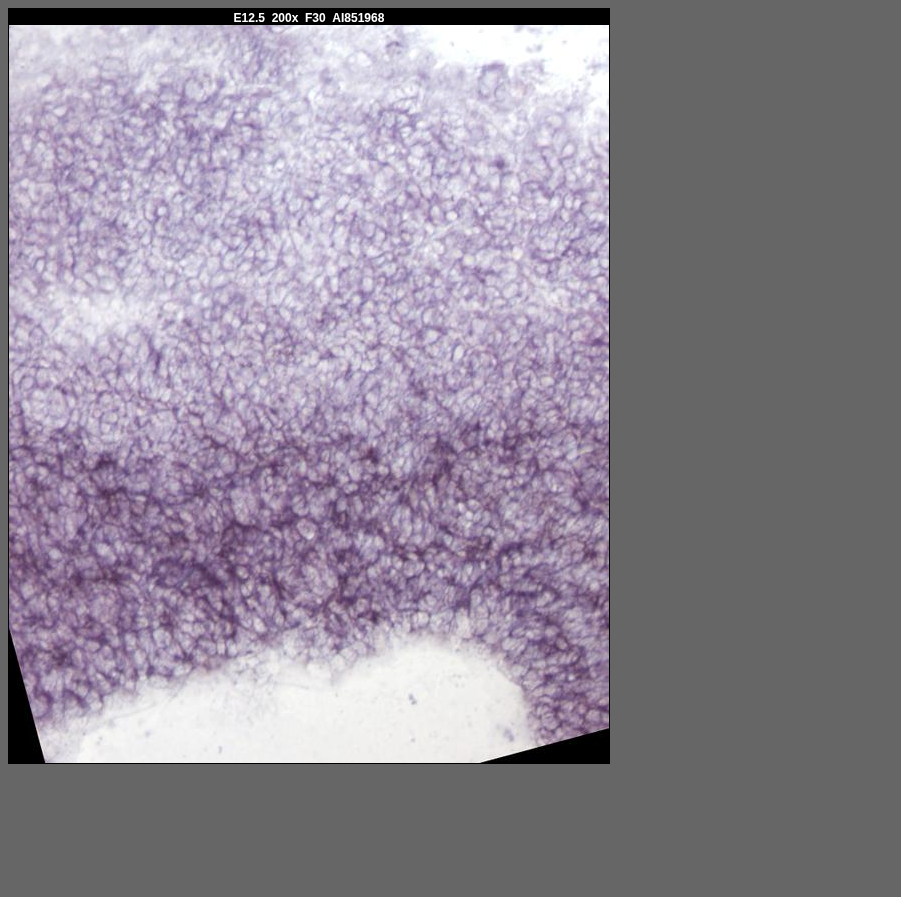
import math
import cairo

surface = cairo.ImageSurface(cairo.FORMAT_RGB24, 901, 897)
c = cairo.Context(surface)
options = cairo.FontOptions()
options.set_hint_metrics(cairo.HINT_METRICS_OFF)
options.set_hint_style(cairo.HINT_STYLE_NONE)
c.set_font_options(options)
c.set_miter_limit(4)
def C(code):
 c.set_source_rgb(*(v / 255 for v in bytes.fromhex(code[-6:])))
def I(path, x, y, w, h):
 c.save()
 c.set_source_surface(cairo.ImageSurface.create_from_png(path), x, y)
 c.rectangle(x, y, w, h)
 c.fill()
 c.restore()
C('666666')
c.paint()
c.rectangle(8.5,8.5,601,755)
C('000000')
c.set_line_width(1)
c.stroke()
I('1.png',9,9,600,754)
surface.write_to_png('o.png')
